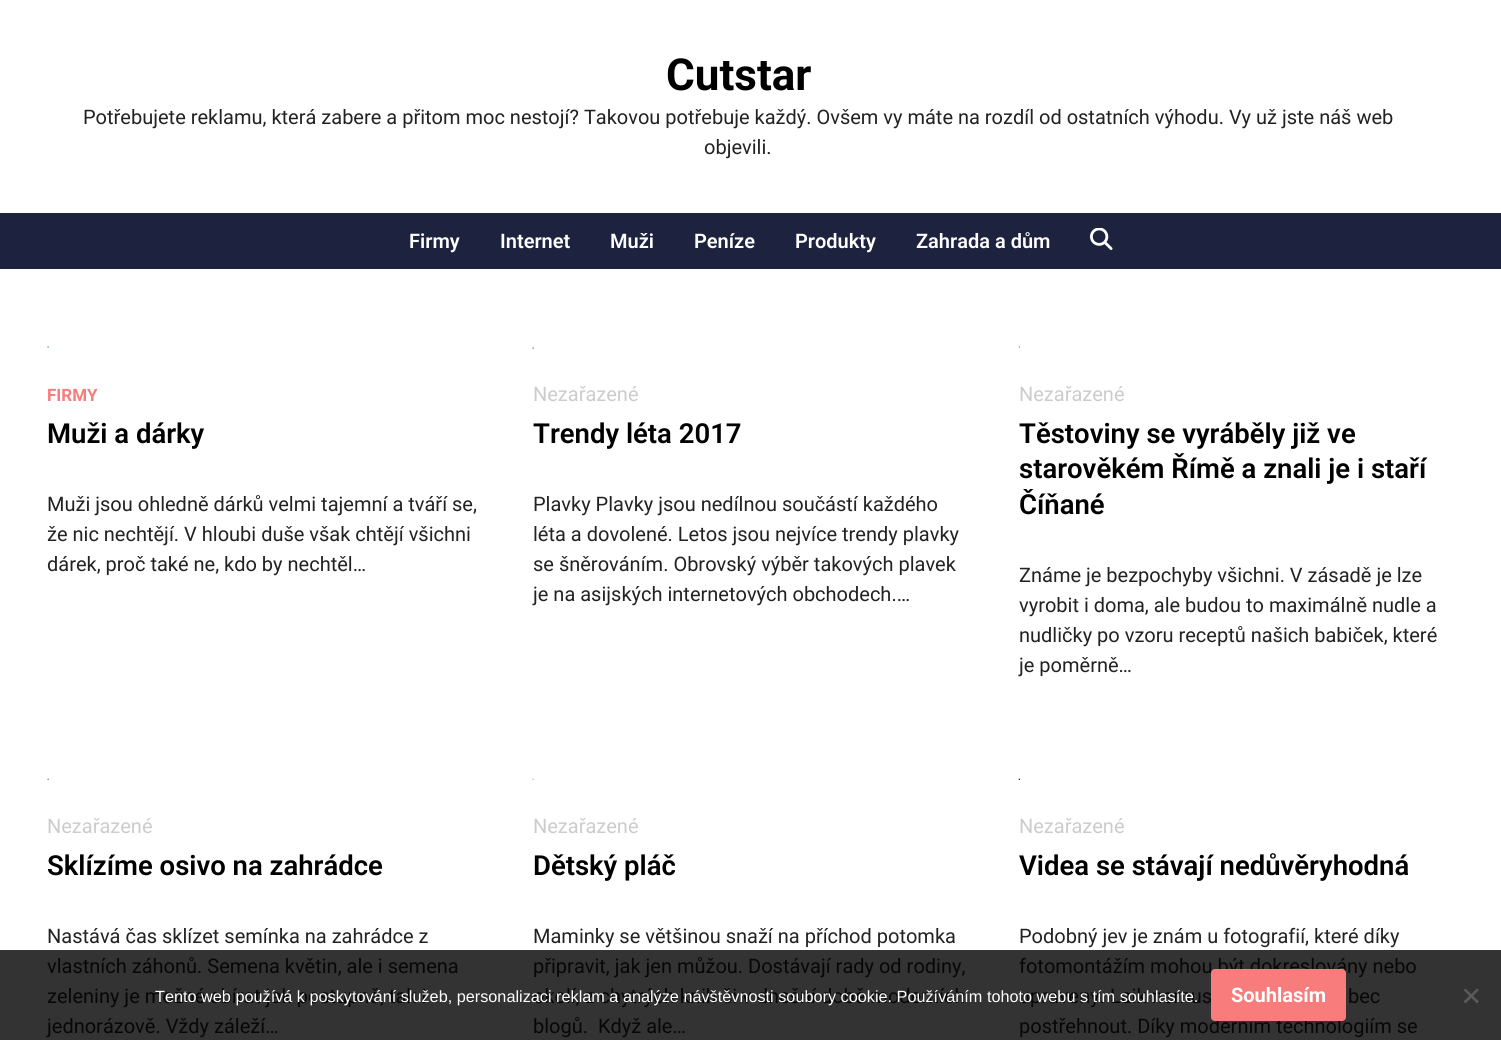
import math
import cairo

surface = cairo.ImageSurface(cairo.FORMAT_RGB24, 1501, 1040)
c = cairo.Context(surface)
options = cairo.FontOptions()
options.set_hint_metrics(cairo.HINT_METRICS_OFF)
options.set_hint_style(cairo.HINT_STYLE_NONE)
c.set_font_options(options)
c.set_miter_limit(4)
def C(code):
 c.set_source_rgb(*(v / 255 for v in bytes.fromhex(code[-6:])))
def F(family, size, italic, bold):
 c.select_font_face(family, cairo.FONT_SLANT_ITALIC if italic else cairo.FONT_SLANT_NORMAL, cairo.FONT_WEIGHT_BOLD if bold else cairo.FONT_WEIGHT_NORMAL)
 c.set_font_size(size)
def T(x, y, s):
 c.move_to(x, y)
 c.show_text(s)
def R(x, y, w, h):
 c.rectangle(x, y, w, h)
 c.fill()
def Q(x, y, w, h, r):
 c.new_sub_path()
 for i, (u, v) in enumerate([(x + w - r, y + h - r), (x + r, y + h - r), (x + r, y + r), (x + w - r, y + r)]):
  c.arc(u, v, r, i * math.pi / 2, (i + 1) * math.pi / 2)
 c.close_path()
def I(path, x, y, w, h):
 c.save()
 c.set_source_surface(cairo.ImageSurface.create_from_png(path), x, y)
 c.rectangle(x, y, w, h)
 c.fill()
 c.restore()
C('ffffff')
c.paint()
C('333333')
R(0,950,1501,90)
F('Roboto',44,0,1)
C('000000')
T(666,90,'Cutstar')
F('Roboto',20,0,0)
C('222222')
T(83,124,'Potřebujete reklamu, která zabere a přitom moc nestojí? Takovou potřebuje každý. Ovšem vy máte na rozdíl od ostatních výhodu. Vy už jste náš web')
T(704,154,'objevili.')
C('1d223f')
R(0,213,1501,56)
F('Roboto SemiBold',20,0,0)
C('ffffff')
T(409,248,'Firmy')
T(500,248,'Internet')
T(610,248,'Muži')
T(694,248,'Peníze')
T(795,248,'Produkty')
T(916,248,'Zahrada a dům')
I('1.png',1090,228,23,22)
I('2.png',47,346,2,2)
F('Roboto',17,0,1)
C('f87c7c')
T(47,401,'FIRMY')
F('Roboto SemiBold',27.5,0,0)
C('000000')
T(47,443,'Muži a dárky')
F('Roboto',20,0,0)
C('222222')
T(47,511,'Muži jsou ohledně dárků velmi tajemní a tváří se,')
T(47,541,'že nic nechtějí. V hloubi duše však chtějí všichni')
T(47,571,'dárek, proč také ne, kdo by nechtěl…')
I('3.png',532,347,2,2)
C('cccccc')
T(533,401,'Nezařazené')
F('Roboto SemiBold',27.5,0,0)
C('000000')
T(533,443,'Trendy léta 2017')
F('Roboto',20,0,0)
C('222222')
T(533,511,'Plavky Plavky jsou nedílnou součástí každého')
T(533,541,'léta a dovolené. Letos jsou nejvíce trendy plavky')
T(533,571,'se šněrováním. Obrovský výběr takových plavek')
T(533,601,'je na asijských internetových obchodech.…')
I('4.png',1018,346,2,2)
C('cccccc')
T(1019,401,'Nezařazené')
F('Roboto SemiBold',27.5,0,0)
C('000000')
T(1019,443,'Těstoviny se vyráběly již ve')
T(1019,478,'starověkém Římě a znali je i staří')
T(1019,514,'Číňané')
F('Roboto',20,0,0)
C('222222')
T(1019,582,'Známe je bezpochyby všichni. V zásadě je lze')
T(1019,612,'vyrobit i doma, ale budou to maximálně nudle a')
T(1019,642,'nudličky po vzoru receptů našich babiček, které')
T(1019,672,'je poměrně…')
I('5.png',47,778,2,2)
C('cccccc')
T(47,833,'Nezařazené')
F('Roboto SemiBold',27.5,0,0)
C('000000')
T(47,875,'Sklízíme osivo na zahrádce')
F('Roboto',20,0,0)
C('222222')
T(47,943,'Nastává čas sklízet semínka na zahrádce z')
C('070707')
T(47,973,'vlastních záhonů. Semena květin, ale i semena')
T(47,1003,'zeleniny je možné sbírat jak postupně, tak i')
T(47,1033,'jednorázově. Vždy záleží…')
I('6.png',532,778,2,2)
C('cccccc')
T(533,833,'Nezařazené')
F('Roboto SemiBold',27.5,0,0)
C('000000')
T(533,875,'Dětský pláč')
F('Roboto',20,0,0)
C('222222')
T(533,943,'Maminky se většinou snaží na příchod potomka')
C('070707')
T(533,973,'připravit, jak jen můžou. Dostávají rady od rodiny,')
T(533,1003,'okolí, z chytrých knih či v dnešní době moderních')
T(533,1033,'blogů.  Když ale…')
I('7.png',1018,778,2,2)
C('cccccc')
T(1019,833,'Nezařazené')
F('Roboto SemiBold',27.5,0,0)
C('000000')
T(1019,875,'Videa se stávají nedůvěryhodná')
F('Roboto',20,0,0)
C('222222')
T(1019,943,'Podobný jev je znám u fotografií, které díky')
C('070707')
T(1019,973,'fotomontážím mohou být dokreslovány nebo')
T(1019,1003,'upraveny. Laik nemus')
T(1348,1003,'bec')
T(1019,1033,'postřehnout. Díky moderním technologiím se')
F('Liberation Sans',16.25,0,0)
C('ffffff')
T(155,1002,'Tento web používá k poskytování služeb, personalizaci reklam a analýze návštěvnosti soubory cookie. Používáním tohoto webu s tím souhlasíte.')
C('f87c7c')
Q(1211,969,135,52,4)
c.fill()
F('Roboto',20,0,1)
C('ffffff')
T(1231,1002,'Souhlasím')
C('5a5a5a')
c.new_path()
c.move_to(1477,988.5)
c.line_to(1479,990)
c.line_to(1465.5,1003.5)
c.line_to(1463.5,1001.5)
c.close_path()
c.fill()
c.new_path()
c.move_to(1463.5,990)
c.line_to(1465.5,988.5)
c.line_to(1479,1001.5)
c.line_to(1477,1003.5)
c.close_path()
c.fill()
surface.write_to_png('o.png')
